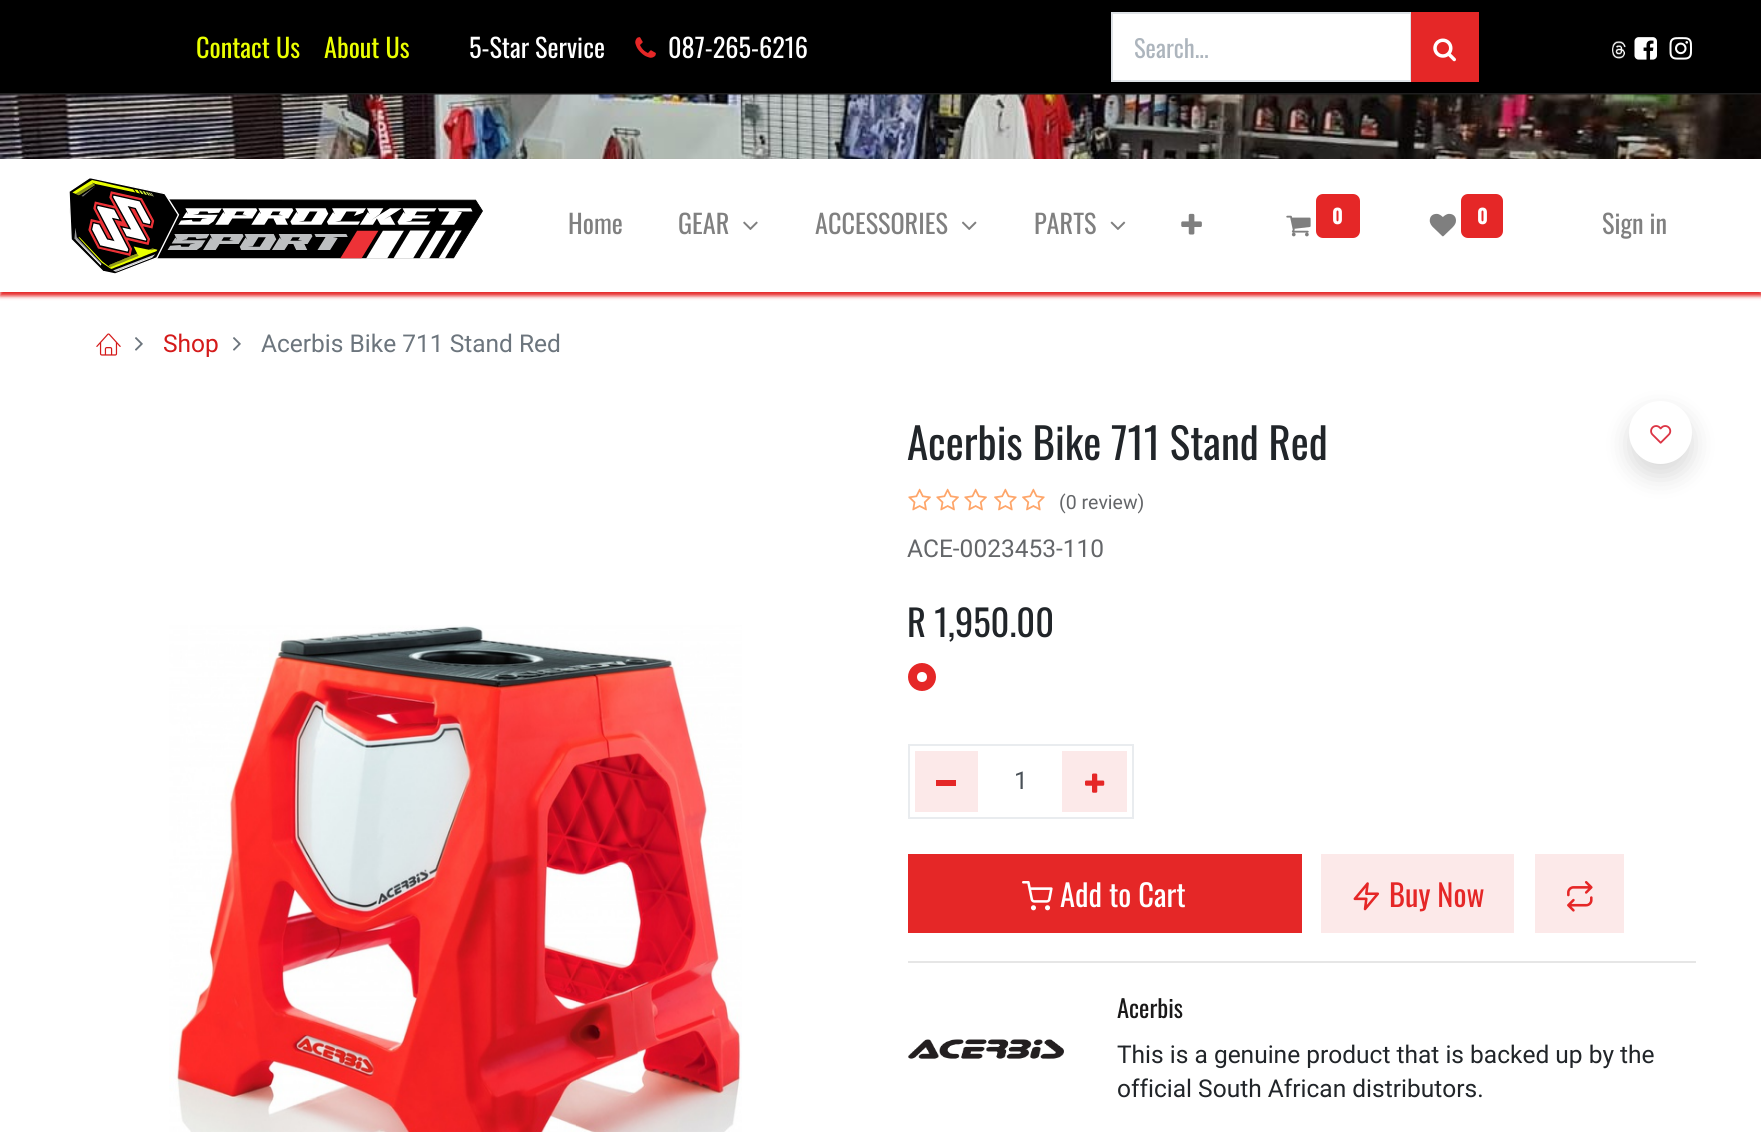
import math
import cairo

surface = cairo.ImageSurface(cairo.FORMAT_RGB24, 1761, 1132)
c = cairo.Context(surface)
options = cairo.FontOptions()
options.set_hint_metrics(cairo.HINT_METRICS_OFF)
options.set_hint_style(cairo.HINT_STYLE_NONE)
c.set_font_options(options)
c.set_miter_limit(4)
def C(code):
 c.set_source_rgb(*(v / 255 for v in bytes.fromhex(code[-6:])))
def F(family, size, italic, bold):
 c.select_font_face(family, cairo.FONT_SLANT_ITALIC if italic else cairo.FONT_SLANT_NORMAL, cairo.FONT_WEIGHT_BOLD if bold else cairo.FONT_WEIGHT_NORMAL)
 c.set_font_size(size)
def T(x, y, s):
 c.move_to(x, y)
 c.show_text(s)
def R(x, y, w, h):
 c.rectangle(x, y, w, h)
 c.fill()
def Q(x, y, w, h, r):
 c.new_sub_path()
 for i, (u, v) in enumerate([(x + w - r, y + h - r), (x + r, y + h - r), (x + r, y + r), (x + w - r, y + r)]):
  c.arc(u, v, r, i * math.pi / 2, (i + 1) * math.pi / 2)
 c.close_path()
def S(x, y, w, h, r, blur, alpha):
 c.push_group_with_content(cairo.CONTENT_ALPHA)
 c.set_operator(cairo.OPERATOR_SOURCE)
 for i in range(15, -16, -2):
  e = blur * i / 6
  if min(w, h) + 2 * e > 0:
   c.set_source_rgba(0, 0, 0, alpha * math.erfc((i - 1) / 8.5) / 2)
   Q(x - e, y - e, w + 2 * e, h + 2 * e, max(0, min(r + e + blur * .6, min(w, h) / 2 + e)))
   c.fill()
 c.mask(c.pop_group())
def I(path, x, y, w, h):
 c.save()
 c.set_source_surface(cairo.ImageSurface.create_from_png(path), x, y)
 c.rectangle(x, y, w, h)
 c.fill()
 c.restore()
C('ffffff')
c.paint()
C('000000')
R(0,0,1761,93)
C('1f1f1f')
R(0,93,1761,2)
F('Oswald',26.25,0,0)
C('eaff00')
T(196,58,'Contact Us')
T(324,58,'About Us')
C('ffffff')
T(469,58,'5-Star Service')
I('1.png',635,37,21,21)
T(668,58,'087-265-6216')
c.rectangle(1112,13,299,68)
c.fill_preserve()
C('dee2e6')
c.stroke()
F('Oswald',24.5,0,0)
C('adb5bd')
T(1134,58,'Search...')
C('e52727')
R(1411,12,68,70)
I('2.png',1433,38,23,24)
I('3.png',1612,41,14,18)
I('4.png',1634,37,23,23)
I('5.png',1669,37,23,23)
I('6.png',0,94,1761,65)
C('e52727')
S(0,163,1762,133,0,2,1)
C('ffffff')
R(0,159,1761,133)
I('7.png',69,178,414,96)
F('Oswald',26.25,0,0)
C('808080')
T(568,234,'Home')
T(678,234,'GEAR')
I('8.png',743,221,15,9)
T(815,234,'ACCESSORIES')
I('9.png',962,221,15,9)
T(1034,234,'PARTS')
I('10.png',1110,221,16,9)
I('11.png',1181,213,21,22)
I('12.png',1286,215,25,22)
C('e52727')
Q(1316,194,44,44,7)
c.fill()
F('Oswald',20,0,1)
C('ffffff')
T(1332,224,'0')
I('13.png',1429,213,27,24)
C('e52727')
Q(1461,194,42,44,7)
c.fill()
C('ffffff')
T(1477,224,'0')
F('Oswald',26.25,0,0)
C('808080')
T(1602,234,'Sign in')
I('14.png',96,333,25,23)
I('15.png',135,337,8,14)
F('Roboto',24.5,0,0)
C('d41a1a')
T(163,352,'Shop')
I('15.png',233,337,8,14)
C('6c757d')
T(261,352,'Acerbis Bike 711 Stand Red')
I('16.png',169,625,573,507)
F('Oswald',42.9,0,0)
C('212529')
T(907,460,'Acerbis Bike 711 Stand Red')
I('17.png',908,488,23,23)
I('17.png',936,488,23,23)
I('17.png',964,488,23,23)
I('18.png',994,488,23,23)
I('18.png',1022,488,23,23)
F('Roboto',19.5,0,0)
C('646669')
T(1059,509,'(0 review)')
F('Roboto',24.5,0,0)
T(907,557,'ACE-0023453-110')
F('Oswald',36.5,0,0)
C('212529')
T(907,637,'R 1,950.00')
C('e52727')
c.new_path()
c.arc(922,677,13,0,2 * math.pi)
c.fill_preserve()
c.stroke()
C('ffffff')
c.arc(922,677,5,0,2 * math.pi)
c.fill()
c.rectangle(909,745,224,73)
C('e9ecef')
c.stroke()
C('fce9e9')
R(915,751,63,61)
C('e52727')
R(936,780,20,6)
F('Roboto',24.5,0,0)
C('495057')
T(1014,789,'1')
C('fce9e9')
R(1062,751,65,61)
I('19.png',1085,773,20,20)
C('000000')
S(1629,413,63,63,31.5,12.5,.15)
C('ffffff')
c.arc(1660.5,432.5,31.5,0,2 * math.pi)
c.fill()
I('20.png',1650,425,22,19)
C('e52727')
R(908,854,394,79)
I('21.png',1022,881,31,30)
F('Oswald',30.5,0,0)
C('ffffff')
T(1060,907,'Add to Cart')
C('fce9e9')
R(1321,854,193,79)
I('22.png',1353,882,27,29)
C('e52727')
T(1389,907,'Buy Now')
C('fce9e9')
R(1535,854,89,79)
I('23.png',1567,881,26,31)
C('e6e6e6')
R(908,961,788,2)
I('24.png',908,1039,156,20)
F('Oswald',24.5,0,0)
C('1a1919')
T(1117,1018,'Acerbis')
F('Roboto',24.5,0,0)
C('212529')
T(1117,1063,'This is a genuine product that is backed up by the')
T(1117,1097,'official South African distributors.')
surface.write_to_png('o.png')
